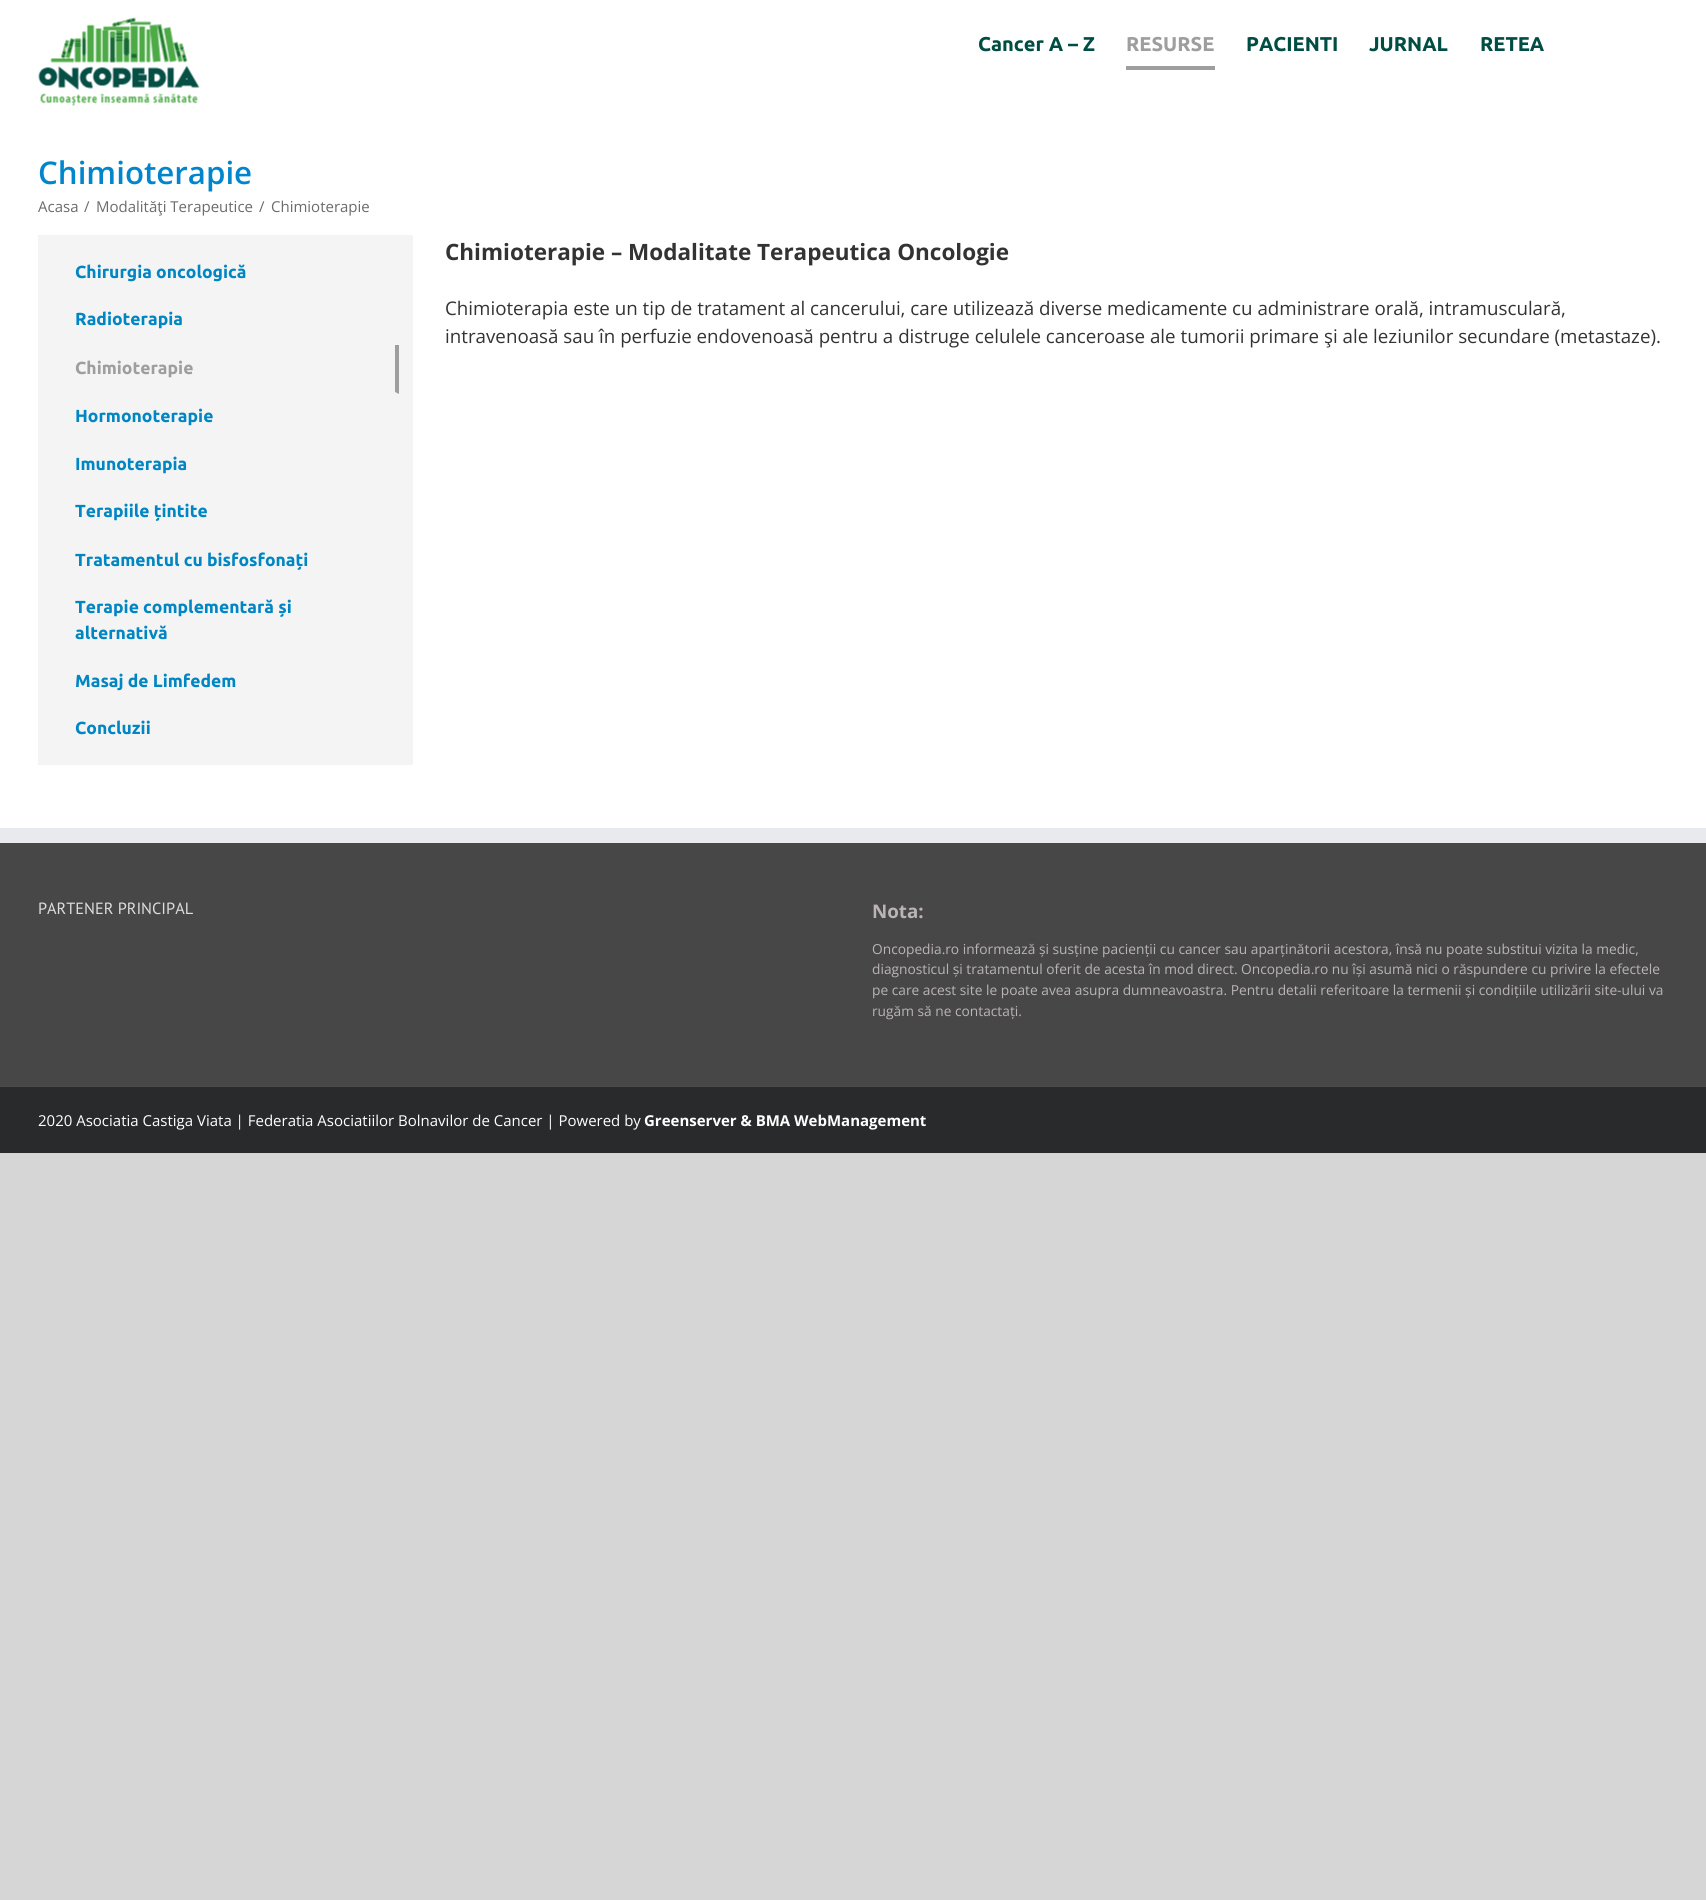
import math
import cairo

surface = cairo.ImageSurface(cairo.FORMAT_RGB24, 1706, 1900)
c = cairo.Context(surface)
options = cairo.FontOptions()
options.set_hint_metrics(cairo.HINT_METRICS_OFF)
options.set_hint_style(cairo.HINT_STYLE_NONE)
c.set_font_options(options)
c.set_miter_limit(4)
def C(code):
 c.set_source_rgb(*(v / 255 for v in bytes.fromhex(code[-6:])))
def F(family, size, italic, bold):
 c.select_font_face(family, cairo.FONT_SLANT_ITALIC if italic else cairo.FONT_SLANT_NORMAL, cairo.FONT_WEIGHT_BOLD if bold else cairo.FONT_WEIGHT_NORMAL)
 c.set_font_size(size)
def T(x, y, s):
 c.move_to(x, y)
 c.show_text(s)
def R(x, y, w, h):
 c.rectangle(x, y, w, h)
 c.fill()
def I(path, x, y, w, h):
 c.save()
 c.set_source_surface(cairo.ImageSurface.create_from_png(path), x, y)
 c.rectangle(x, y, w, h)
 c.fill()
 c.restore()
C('d7d6d6')
c.paint()
C('ffffff')
R(0,0,1706,828)
I('1.png',38,17,162,89)
F('Ubuntu',20,0,1)
C('004d43')
T(978,51,'Cancer A – Z')
C('9e9e9e')
T(1126,51,'RESURSE')
R(1126,66,89,4)
C('004d43')
T(1246,51,'PACIENTI')
T(1369,51,'JURNAL')
T(1480,51,'RETEA')
F('Open Sans SemiBold',31.25,0,0)
C('0186cd')
T(38,184,'Chimioterapie')
F('Open Sans',15,0,0)
C('6b6b6b')
T(38,212,'Acasa')
T(84,212,'/')
T(96,212,'Modalităţi Terapeutice')
T(259,212,'/')
T(271,212,'Chimioterapie')
C('f4f4f4')
R(38,235,375,530)
F('Ubuntu',17.5,0,1)
C('0186c4')
T(75,278,'Chirurgia oncologică')
T(75,325,'Radioterapia')
C('9e9e9e')
c.new_path()
c.move_to(399,345)
c.line_to(399,394)
c.line_to(395,392)
c.line_to(395,345)
c.close_path()
c.fill()
T(75,374,'Chimioterapie')
C('0186c4')
T(75,422,'Hormonoterapie')
T(75,470,'Imunoterapia')
T(75,517,'Terapiile țintite')
T(75,566,'Tratamentul cu bisfosfonați')
T(75,613,'Terapie complementară și')
T(75,639,'alternativă')
T(75,687,'Masaj de Limfedem')
T(75,734,'Concluzii')
F('Open Sans',22.5,0,1)
C('333333')
T(445,260,'Chimioterapie – Modalitate Terapeutica Oncologie')
F('Open Sans',18.75,0,0)
T(445,315,'Chimioterapia este un tip de tratament al cancerului, care utilizează diverse medicamente cu administrare orală, intramusculară,')
T(445,343,'intravenoasă sau în perfuzie endovenoasă pentru a distruge celulele canceroase ale tumorii primare şi ale leziunilor secundare (metastaze).')
C('474747')
R(0,843,1706,243)
C('e9eaee')
R(0,828,1706,15)
F('PT Sans',16.25,0,0)
C('dddddd')
T(38,914,'PARTENER PRINCIPAL')
F('Open Sans',18.75,0,1)
C('bab4b4')
T(872,918,'Nota:')
F('Open Sans',13.75,0,0)
T(872,954,'Oncopedia.ro informează și susține pacienții cu cancer sau aparținătorii acestora, însă nu poate substitui vizita la medic,')
T(872,974,'diagnosticul și tratamentul oferit de acesta în mod direct. Oncopedia.ro nu își asumă nici o răspundere cu privire la efectele')
T(872,995,'pe care acest site le poate avea asupra dumneavoastra. Pentru detalii referitoare la termenii și condițiile utilizării site-ului va')
T(872,1016,'rugăm să ne contactați.')
C('282a2b')
R(0,1087,1706,66)
C('4b4c4d')
R(0,1086,1706,1)
F('Open Sans',15,0,0)
C('ffffff')
T(38,1126,'2020 Asociatia Castiga Viata | Federatia Asociatiilor Bolnavilor de Cancer | Powered by')
F('Open Sans',15,0,1)
T(644,1126,'Greenserver & BMA WebManagement')
surface.write_to_png('o.png')
